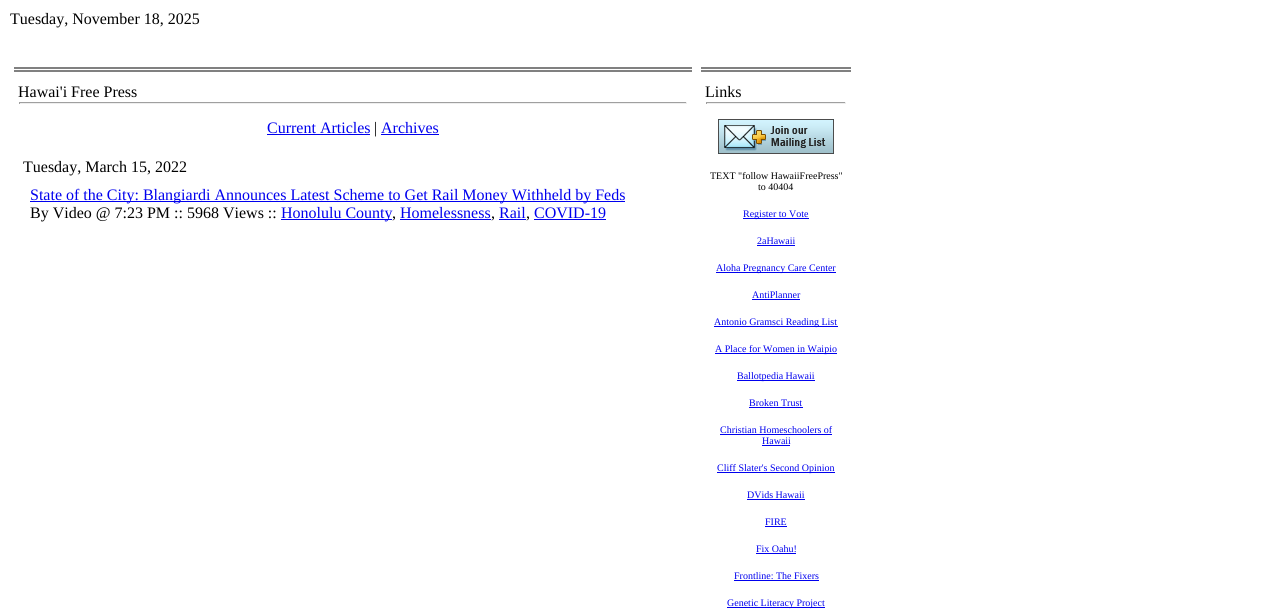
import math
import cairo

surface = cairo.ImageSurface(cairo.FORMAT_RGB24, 1276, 609)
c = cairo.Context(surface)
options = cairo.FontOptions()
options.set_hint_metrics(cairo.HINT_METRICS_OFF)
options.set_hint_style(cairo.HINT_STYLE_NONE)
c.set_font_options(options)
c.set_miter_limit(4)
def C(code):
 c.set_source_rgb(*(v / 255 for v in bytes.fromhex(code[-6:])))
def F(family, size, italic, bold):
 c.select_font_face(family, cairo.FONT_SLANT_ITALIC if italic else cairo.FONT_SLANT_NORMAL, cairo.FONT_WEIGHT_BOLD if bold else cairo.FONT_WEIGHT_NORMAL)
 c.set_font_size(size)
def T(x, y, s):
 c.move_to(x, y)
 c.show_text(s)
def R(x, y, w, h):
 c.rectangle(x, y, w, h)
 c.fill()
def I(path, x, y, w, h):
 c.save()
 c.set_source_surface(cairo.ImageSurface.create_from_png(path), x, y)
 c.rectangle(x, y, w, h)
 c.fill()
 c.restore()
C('ffffff')
c.paint()
F('Liberation Serif',16,0,0)
C('000000')
T(10,24,'Tuesday, November 18, 2025')
C('808080')
R(14,67,678,2)
R(14,70,678,2)
C('000000')
T(18,97,'Hawai\'i Free Press')
C('9f9f9f')
R(19,102,668,1)
C('eeeeee')
R(686,102,1,2)
R(19,103,668,1)
C('9f9f9f')
R(19,102,1,2)
C('0000ee')
T(267,133,'Current Articles')
R(267,134,103,1)
C('000000')
T(374,133,'|')
C('0000ee')
T(381,133,'Archives')
R(381,134,58,1)
C('000000')
T(23,172,'Tuesday, March 15, 2022')
C('0000ee')
R(30,201,595,1)
T(30,200,'State of the City: Blangiardi Announces Latest Scheme to Get Rail Money Withheld by Feds')
C('000000')
T(30,218,'By Video @ 7:23 PM :: 5968 Views ::')
C('0000ee')
R(281,219,111,1)
T(281,218,'Honolulu County')
C('000000')
T(392,218,',')
C('0000ee')
T(400,218,'Homelessness')
R(400,219,91,1)
C('000000')
T(491,218,',')
C('0000ee')
T(499,218,'Rail')
R(499,219,27,1)
C('000000')
T(526,218,',')
C('0000ee')
T(534,218,'COVID-19')
R(534,219,72,1)
C('808080')
R(701,67,150,2)
R(701,70,150,2)
C('000000')
T(705,97,'Links')
C('9f9f9f')
R(706,102,140,1)
C('eeeeee')
R(845,102,1,2)
R(706,103,140,1)
C('9f9f9f')
R(706,102,1,2)
I('1.png',718,119,116,35)
F('Liberation Serif',10,0,0)
C('000000')
T(710,179,'TEXT "follow HawaiiFreePress"')
T(758,190,'to 40404')
C('0000ee')
R(743,218,66,1)
T(743,217,'Register to Vote')
T(757,244,'2aHawaii')
R(757,245,38,1)
R(716,272,120,1)
T(716,271,'Aloha Pregnancy Care Center')
T(752,298,'AntiPlanner')
R(752,299,48,1)
R(714,326,124,1)
T(714,325,'Antonio Gramsci Reading List')
R(715,353,122,1)
T(715,352,'A Place for Women in Waipio')
R(737,380,78,1)
T(737,379,'Ballotpedia Hawaii')
T(749,406,'Broken Trust')
R(749,407,54,1)
T(720,433,'Christian Homeschoolers of')
R(720,434,112,1)
T(762,444,'Hawaii')
R(762,445,28,1)
R(717,472,118,1)
T(717,471,'Cliff Slater\'s Second Opinion')
T(747,498,'DVids Hawaii')
R(747,499,58,1)
T(765,525,'FIRE')
R(765,526,22,1)
T(756,552,'Fix Oahu!')
R(756,553,40,1)
T(734,579,'Frontline: The Fixers')
R(734,580,85,1)
R(727,607,98,1)
T(727,606,'Genetic Literacy Project')
surface.write_to_png('o.png')
